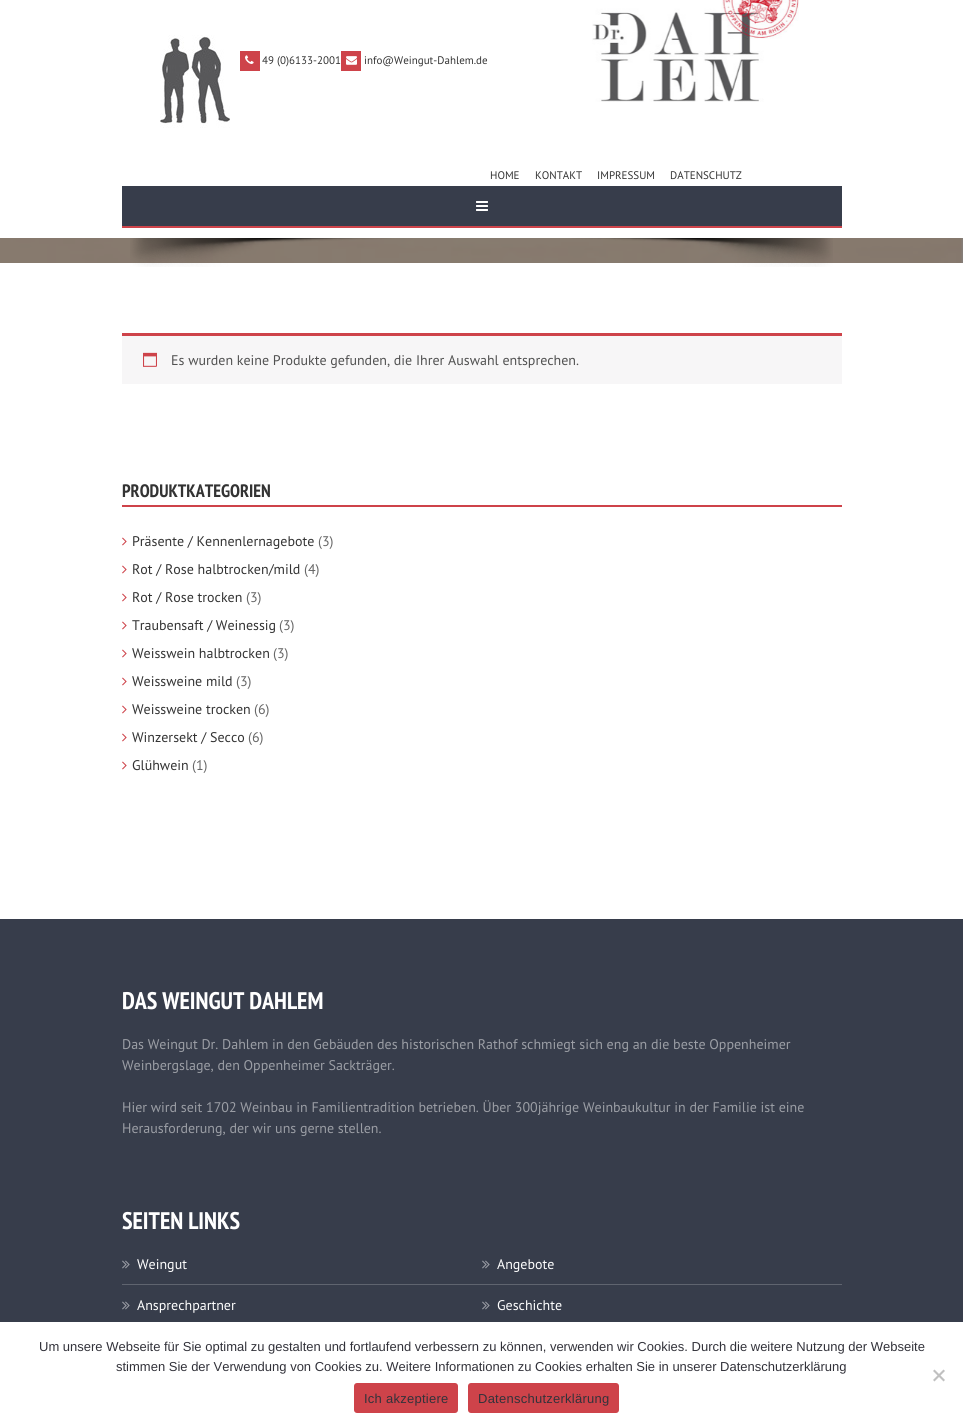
import math
import cairo

surface = cairo.ImageSurface(cairo.FORMAT_RGB24, 963, 1428)
c = cairo.Context(surface)
options = cairo.FontOptions()
options.set_hint_metrics(cairo.HINT_METRICS_OFF)
options.set_hint_style(cairo.HINT_STYLE_NONE)
c.set_font_options(options)
c.set_miter_limit(4)
def C(code):
 c.set_source_rgb(*(v / 255 for v in bytes.fromhex(code[-6:])))
def F(family, size, italic, bold):
 c.select_font_face(family, cairo.FONT_SLANT_ITALIC if italic else cairo.FONT_SLANT_NORMAL, cairo.FONT_WEIGHT_BOLD if bold else cairo.FONT_WEIGHT_NORMAL)
 c.set_font_size(size)
def T(x, y, s):
 c.move_to(x, y)
 c.show_text(s)
def L(x, y, s, letter, word):
 c.move_to(x, y)
 for ch in s:
  c.show_text(ch)
  c.rel_move_to(letter + word * (ch == ' '), 0)
def R(x, y, w, h):
 c.rectangle(x, y, w, h)
 c.fill()
def Q(x, y, w, h, r):
 c.new_sub_path()
 for i, (u, v) in enumerate([(x + w - r, y + h - r), (x + r, y + h - r), (x + r, y + r), (x + w - r, y + r)]):
  c.arc(u, v, r, i * math.pi / 2, (i + 1) * math.pi / 2)
 c.close_path()
def I(path, x, y, w, h):
 c.save()
 c.set_source_surface(cairo.ImageSurface.create_from_png(path), x, y)
 c.rectangle(x, y, w, h)
 c.fill()
 c.restore()
C('ffffff')
c.paint()
C('878b93')
R(960,238,3,25)
I('1.png',160,35,70,93)
C('ce434a')
R(240,51,20,20)
I('2.png',245,55,9,9)
F('PT Sans',11,0,0)
C('333333')
T(262,64,'49 (0)6133-2001')
C('ce434a')
R(341,51,20,20)
I('3.png',346,56,11,9)
C('333333')
T(364,64,'info@Weingut-Dahlem.de')
I('4.png',592,0,207,102)
T(490,179,'HOME')
T(535,179,'KONTAKT')
T(597,179,'IMPRESSUM')
T(670,179,'DATENSCHUTZ')
C('373d4b')
R(122,186,720,40)
C('ce434a')
R(122,226,720,2)
I('5.png',476,201,12,10)
I('7.png',0,238,963,25)
I('6.png',130,238,703,29)
C('f7f6f7')
R(122,336,720,48)
C('ce434a')
R(122,333,720,3)
I('8.png',143,352,14,15)
F('PT Sans',14,0,0)
C('515151')
T(171,365,'Es wurden keine Produkte gefunden, die Ihrer Auswahl entsprechen.')
C('ce434a')
R(122,505,720,2)
F('PT Sans Narrow',18,0,1)
C('333333')
T(122,497,'PRODUKTKATEGORIEN')
I('9.png',122,537,5,9)
F('PT Sans',14,0,0)
T(132,546,'Präsente / Kennenlernagebote')
C('666666')
T(318,546,'(3)')
I('9.png',122,565,5,9)
C('333333')
T(132,574,'Rot / Rose halbtrocken/mild')
C('666666')
T(304,574,'(4)')
I('9.png',122,593,5,9)
C('333333')
T(132,602,'Rot / Rose trocken')
C('666666')
T(246,602,'(3)')
I('9.png',122,621,5,9)
C('333333')
T(132,630,'Traubensaft / Weinessig')
C('666666')
T(279,630,'(3)')
I('9.png',122,649,5,9)
C('333333')
T(132,658,'Weisswein halbtrocken')
C('666666')
T(273,658,'(3)')
I('9.png',122,677,5,9)
C('333333')
T(132,686,'Weissweine mild')
C('666666')
T(236,686,'(3)')
I('9.png',122,705,5,9)
C('333333')
T(132,714,'Weissweine trocken')
C('666666')
T(254,714,'(6)')
I('9.png',122,733,5,9)
C('333333')
T(132,742,'Winzersekt / Secco')
C('666666')
T(248,742,'(6)')
I('9.png',122,761,5,9)
C('333333')
T(132,770,'Glühwein')
C('666666')
T(192,770,'(1)')
C('373d4b')
R(0,919,963,403)
F('PT Sans Narrow',24,0,1)
C('ffffff')
T(122,1009,'DAS WEINGUT DAHLEM')
F('PT Sans',14,0,0)
C('9b9ea5')
T(122,1049,'Das Weingut Dr. Dahlem in den Gebäuden des historischen Rathof schmiegt sich eng an die beste Oppenheimer')
T(122,1070,'Weinbergslage, den Oppenheimer Sackträger.')
T(122,1112,'Hier wird seit 1702 Weinbau in Familientradition betrieben. Über 300jährige Weinbaukultur in der Familie ist eine')
T(122,1133,'Herausforderung, der wir uns gerne stellen.')
F('PT Sans Narrow',24,0,1)
C('ffffff')
T(122,1229,'SEITEN LINKS')
C('5f646f')
R(122,1284,720,1)
I('10.png',122,1260,8,9)
F('PT Sans',14,0,0)
C('ffffff')
T(137,1269,'Weingut')
I('10.png',482,1260,8,9)
T(497,1269,'Angebote')
I('10.png',122,1301,8,9)
T(137,1310,'Ansprechpartner')
I('10.png',482,1301,8,9)
T(497,1310,'Geschichte')
F('Liberation Sans',13,0,0)
C('32323a')
T(39,1351,'Um unsere Webseite für Sie optimal zu gestalten und fortlaufend verbessern zu können, verwenden wir Cookies. Durch die weitere Nutzung der Webseite')
T(116,1371,'stimmen Sie der Verwendung von Cookies zu. Weitere Informationen zu Cookies erhalten Sie in unserer Datenschutzerklärung')
C('c0c0c0')
c.new_path()
c.move_to(943.5,1369.5)
c.line_to(945,1371)
c.line_to(934.5,1381.5)
c.line_to(933,1380)
c.close_path()
c.fill()
c.new_path()
c.move_to(933,1371)
c.line_to(934.5,1369.5)
c.line_to(945,1380)
c.line_to(943.5,1381.5)
c.close_path()
c.fill()
C('ce434a')
Q(354,1383,104,30,3)
c.fill()
C('32323a')
L(364,1403,'Ich akzeptiere',.25,0)
C('ce434a')
Q(468,1383,151,30,3)
c.fill()
C('32323a')
L(478,1403,'Datenschutzerklärung',.25,0)
surface.write_to_png('o.png')
